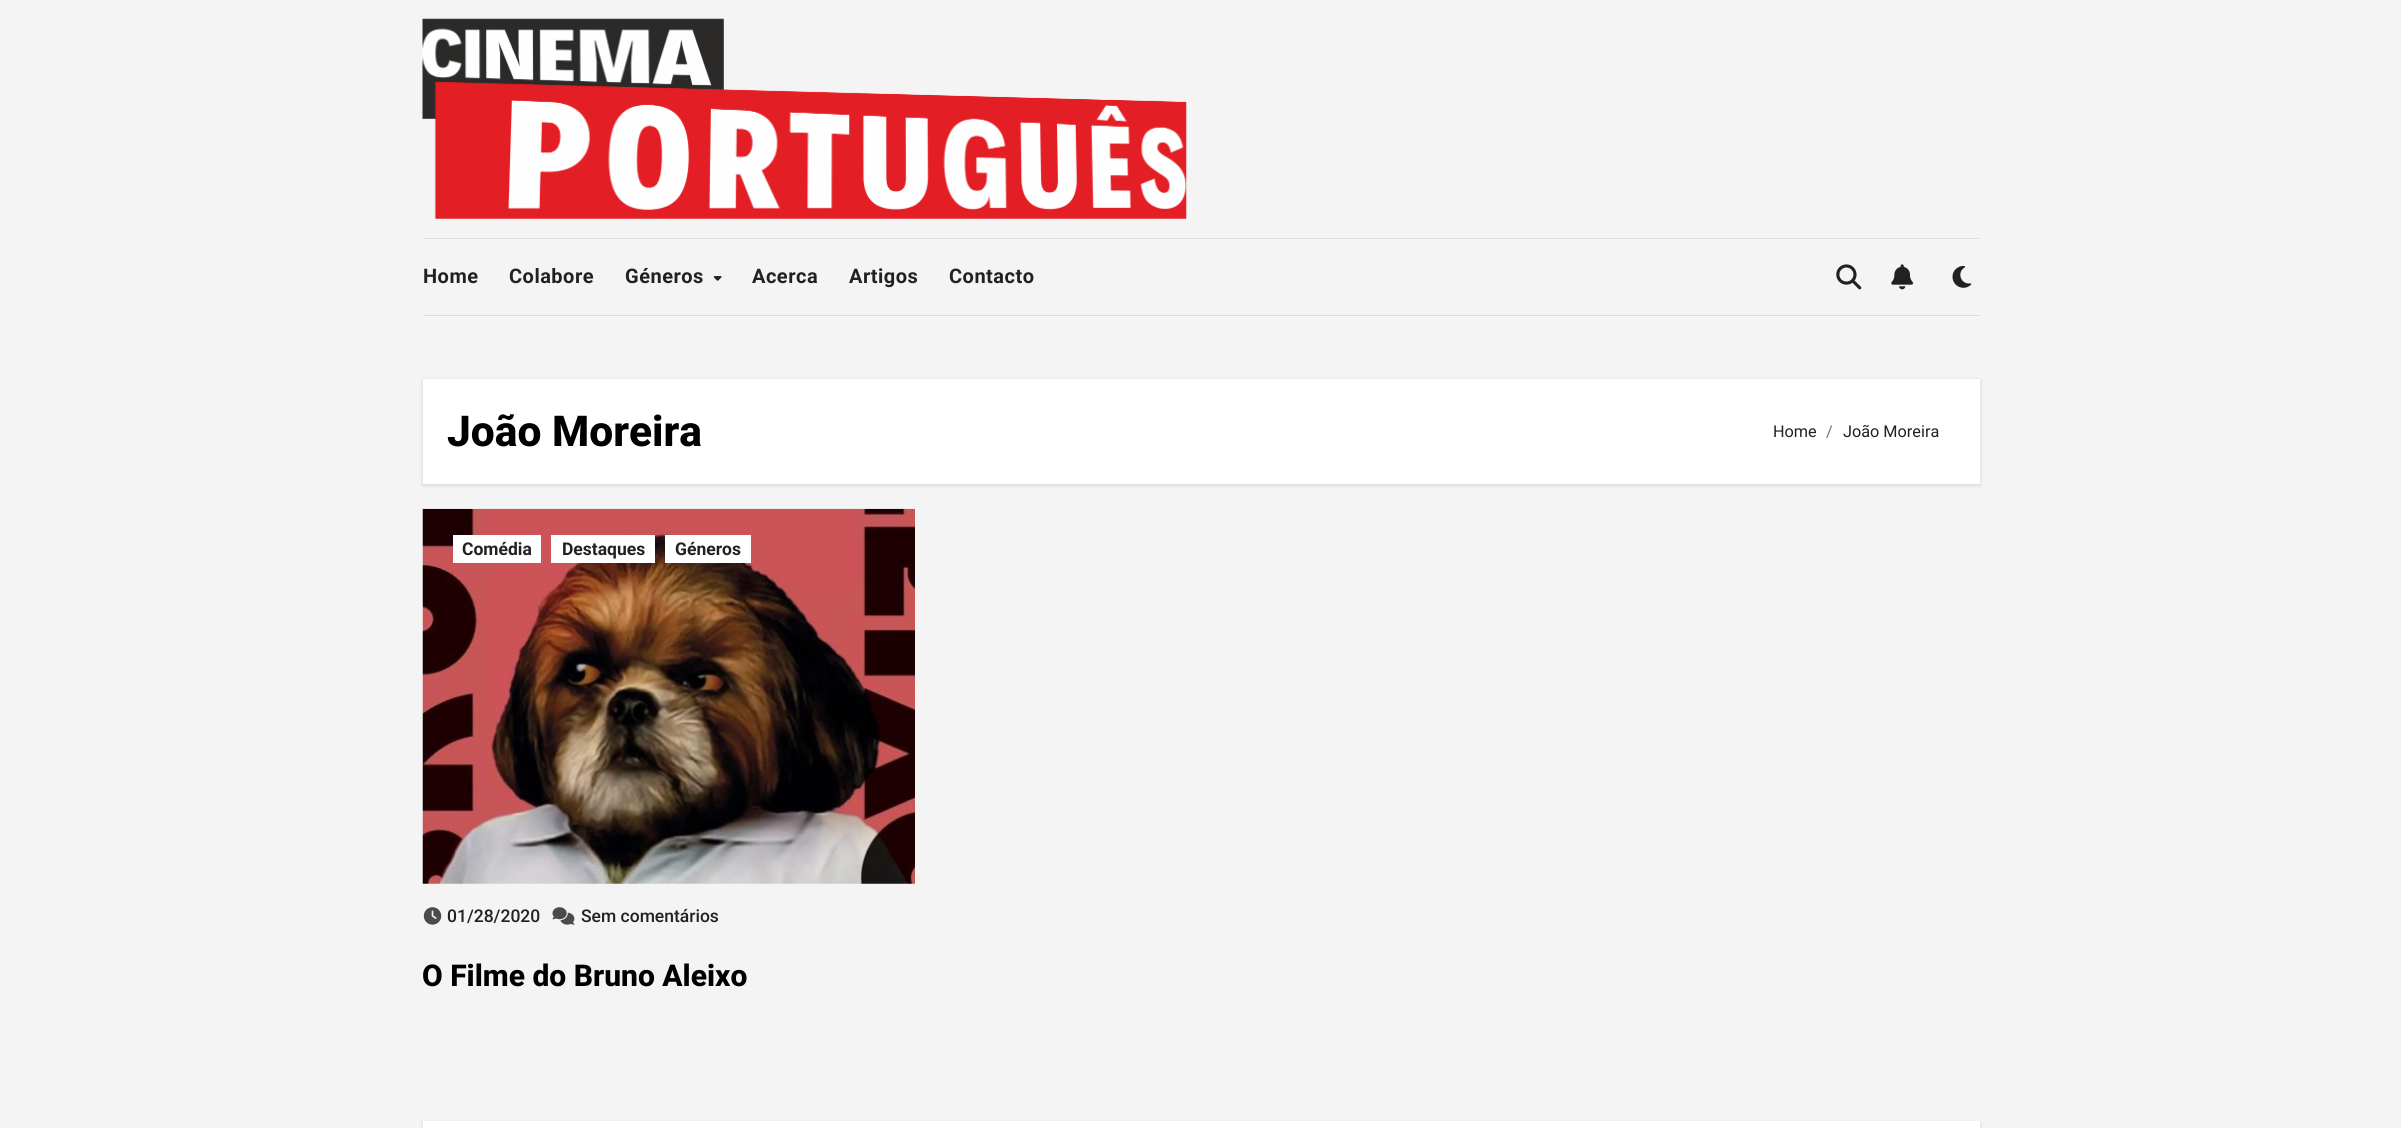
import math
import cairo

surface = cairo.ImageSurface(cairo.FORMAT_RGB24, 2401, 1128)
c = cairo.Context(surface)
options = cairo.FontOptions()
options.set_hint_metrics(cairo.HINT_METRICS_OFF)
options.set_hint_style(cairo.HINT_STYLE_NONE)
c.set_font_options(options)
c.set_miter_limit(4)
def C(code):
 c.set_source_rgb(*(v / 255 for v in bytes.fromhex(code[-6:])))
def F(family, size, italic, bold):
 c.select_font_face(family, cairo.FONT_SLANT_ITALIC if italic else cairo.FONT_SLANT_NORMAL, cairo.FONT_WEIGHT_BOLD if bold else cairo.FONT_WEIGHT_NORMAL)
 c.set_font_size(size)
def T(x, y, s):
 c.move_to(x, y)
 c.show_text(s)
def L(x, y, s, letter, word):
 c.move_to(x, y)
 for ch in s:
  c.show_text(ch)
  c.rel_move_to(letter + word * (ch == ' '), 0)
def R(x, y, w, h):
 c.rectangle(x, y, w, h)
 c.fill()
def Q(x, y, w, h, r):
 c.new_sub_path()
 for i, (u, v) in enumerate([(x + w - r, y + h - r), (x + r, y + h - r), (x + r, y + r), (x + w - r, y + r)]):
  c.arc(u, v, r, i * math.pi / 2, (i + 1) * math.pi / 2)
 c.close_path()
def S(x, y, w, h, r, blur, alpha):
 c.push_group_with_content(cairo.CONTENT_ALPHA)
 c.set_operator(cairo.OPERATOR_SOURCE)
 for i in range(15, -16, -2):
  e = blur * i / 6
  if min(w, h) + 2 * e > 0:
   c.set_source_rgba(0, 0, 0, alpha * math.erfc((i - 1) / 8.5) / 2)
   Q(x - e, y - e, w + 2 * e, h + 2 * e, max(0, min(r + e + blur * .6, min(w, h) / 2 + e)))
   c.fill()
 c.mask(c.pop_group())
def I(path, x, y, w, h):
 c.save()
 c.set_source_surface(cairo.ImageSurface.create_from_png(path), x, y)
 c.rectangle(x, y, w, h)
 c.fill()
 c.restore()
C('f4f4f4')
c.paint()
I('1.png',422,18,765,201)
C('dddddd')
c.new_path()
c.move_to(422,238)
c.line_to(1980,238)
c.line_to(1979,239)
c.line_to(424,239)
c.close_path()
c.fill()
c.new_path()
c.move_to(1980,316)
c.line_to(422,316)
c.line_to(424,315)
c.line_to(1979,315)
c.close_path()
c.fill()
F('Roboto',20,0,1)
C('212121')
L(423,283,'Home',.5,0)
L(509,283,'Colabore',.5,0)
L(625,283,'Géneros',.5,0)
I('2.png',713,276,9,5)
L(752,283,'Acerca',.5,0)
L(849,283,'Artigos',.5,0)
L(949,283,'Contacto',.5,0)
I('3.png',1836,264,26,26)
I('4.png',1891,264,23,26)
I('5.png',1952,265,20,23)
C('000000')
S(423,380,1557,105,0,2,.15)
C('ffffff')
R(423,379,1557,105)
F('Roboto ExtraBold',42.5,0,0)
C('000000')
T(447,446,'João Moreira')
F('Roboto',16.25,0,0)
C('212121')
T(1773,437,'Home')
C('6c757d')
T(1826,437,'/')
C('212121')
T(1843,437,'João Moreira')
I('6.png',422,508,493,376)
C('ffffff')
R(453,535,88,28)
F('Roboto',17.5,0,1)
C('212121')
T(462,555,'Comédia')
C('ffffff')
R(551,535,104,28)
C('212121')
T(562,555,'Destaques')
C('ffffff')
R(665,535,86,28)
C('212121')
T(675,555,'Géneros')
I('7.png',423,907,19,18)
F('Roboto Medium',17.5,0,0)
T(447,922,'01/28/2020')
I('8.png',552,907,23,18)
T(581,922,'Sem comentários')
F('Roboto ExtraBold',30,0,0)
C('000000')
T(422,986,'O Filme do Bruno Aleixo')
C('000000')
S(423,1123,1557,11,0,2,.15)
C('ffffff')
R(423,1121,1557,7)
surface.write_to_png('o.png')
